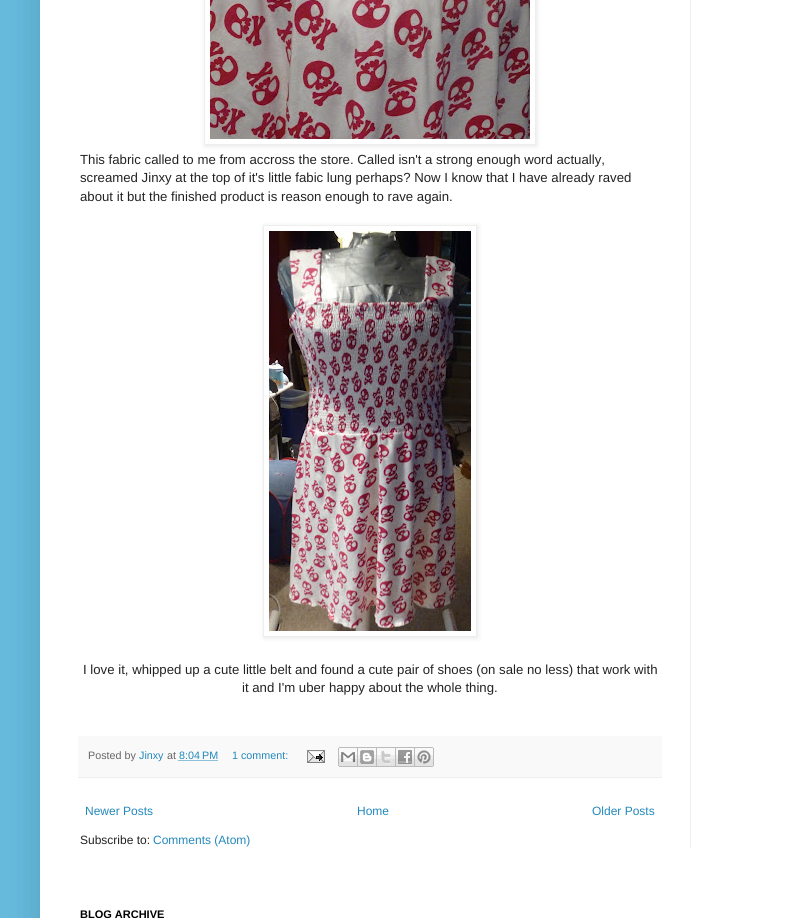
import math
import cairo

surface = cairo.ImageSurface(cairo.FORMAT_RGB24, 812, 918)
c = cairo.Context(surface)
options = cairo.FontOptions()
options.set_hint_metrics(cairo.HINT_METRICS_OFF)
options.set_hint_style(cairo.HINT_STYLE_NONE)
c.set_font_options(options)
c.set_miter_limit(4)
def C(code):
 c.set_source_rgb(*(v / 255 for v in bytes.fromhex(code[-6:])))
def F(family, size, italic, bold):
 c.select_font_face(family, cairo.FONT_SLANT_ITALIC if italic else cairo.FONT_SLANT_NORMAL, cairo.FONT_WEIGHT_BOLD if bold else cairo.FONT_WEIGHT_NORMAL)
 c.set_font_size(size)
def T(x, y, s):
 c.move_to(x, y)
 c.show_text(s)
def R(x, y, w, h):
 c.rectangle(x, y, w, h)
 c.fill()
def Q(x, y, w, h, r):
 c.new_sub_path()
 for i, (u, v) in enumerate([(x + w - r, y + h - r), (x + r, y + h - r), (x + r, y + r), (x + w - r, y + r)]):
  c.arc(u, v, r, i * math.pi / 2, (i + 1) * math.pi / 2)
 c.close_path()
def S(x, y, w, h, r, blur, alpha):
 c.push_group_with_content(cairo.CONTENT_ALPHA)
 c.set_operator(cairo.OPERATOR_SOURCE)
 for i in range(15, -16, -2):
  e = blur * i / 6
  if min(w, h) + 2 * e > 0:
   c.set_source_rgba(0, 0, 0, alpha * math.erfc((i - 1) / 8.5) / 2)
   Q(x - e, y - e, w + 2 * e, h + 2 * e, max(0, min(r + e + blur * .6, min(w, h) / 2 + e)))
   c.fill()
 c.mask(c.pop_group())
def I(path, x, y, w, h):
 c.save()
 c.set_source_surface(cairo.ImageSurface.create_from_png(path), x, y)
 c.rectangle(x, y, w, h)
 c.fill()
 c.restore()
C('66bbdd')
c.paint()
C('000000')
S(40,-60,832,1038,0,20,.15)
C('ffffff')
R(40,0,772,918)
c.save()
c.set_fill_rule(cairo.FILL_RULE_EVEN_ODD)
c.new_path()
c.move_to(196,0)
c.line_to(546,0)
c.line_to(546,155)
c.line_to(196,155)
c.close_path()
c.move_to(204,-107)
c.line_to(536,-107)
c.line_to(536,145)
c.line_to(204,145)
c.close_path()
c.clip()
C('000000')
S(205,-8,332,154,0,2.5,.1)
c.restore()
c.rectangle(204.5,-.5,331,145)
C('eeeeee')
c.set_line_width(1)
c.stroke()
I('1.png',210,0,320,139)
F('Liberation Sans',13.2,0,0)
C('222222')
T(80,164,'This fabric called to me from accross the store. Called isn\'t a strong enough word actually,')
T(80,182,'screamed Jinxy at the top of it\'s little fabic lung perhaps? Now I know that I have already raved')
T(80,201,'about it but the finished product is reason enough to rave again.')
c.save()
c.set_fill_rule(cairo.FILL_RULE_EVEN_ODD)
c.new_path()
c.move_to(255,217)
c.line_to(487,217)
c.line_to(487,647)
c.line_to(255,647)
c.close_path()
c.move_to(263,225)
c.line_to(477,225)
c.line_to(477,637)
c.line_to(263,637)
c.close_path()
c.clip()
C('000000')
S(264,226,214,412,0,2.5,.1)
c.restore()
c.rectangle(263.5,225.5,213,411)
C('eeeeee')
c.stroke()
I('2.png',269,231,202,400)
C('222222')
T(83,674,'I love it, whipped up a cute little belt and found a cute pair of shoes (on sale no less) that work with')
T(242,692,'it and I\'m uber happy about the whole thing.')
C('f9f9f9')
R(78,736,584,41)
C('eeeeee')
R(78,777,584,1)
F('Liberation Sans',10.75,0,0)
C('666666')
T(88,759,'Posted by')
C('2288bb')
T(139,759,'Jinxy')
C('666666')
T(167,759,'at')
C('2288bb')
T(179,759,'8:04 PM')
c.new_path()
c.move_to(178.5,760.5)
c.line_to(218,760.5)
c.set_dash([1,1])
c.stroke()
T(232,759,'1 comment:')
I('3.png',307,750,18,13)
I('4.png',338,747,20,20)
I('5.png',358,747,19,20)
I('6.png',377,747,19,20)
I('7.png',396,747,19,20)
I('8.png',415,747,19,20)
F('Liberation Sans',12,0,0)
T(85,815,'Newer Posts')
T(357,815,'Home')
T(592,815,'Older Posts')
C('222222')
T(80,844,'Subscribe to:')
C('2288bb')
T(153,844,'Comments (Atom)')
C('eeeeee')
R(690,0,1,848)
F('Liberation Sans',11,0,1)
C('000000')
T(80,918,'BLOG ARCHIVE')
surface.write_to_png('o.png')
